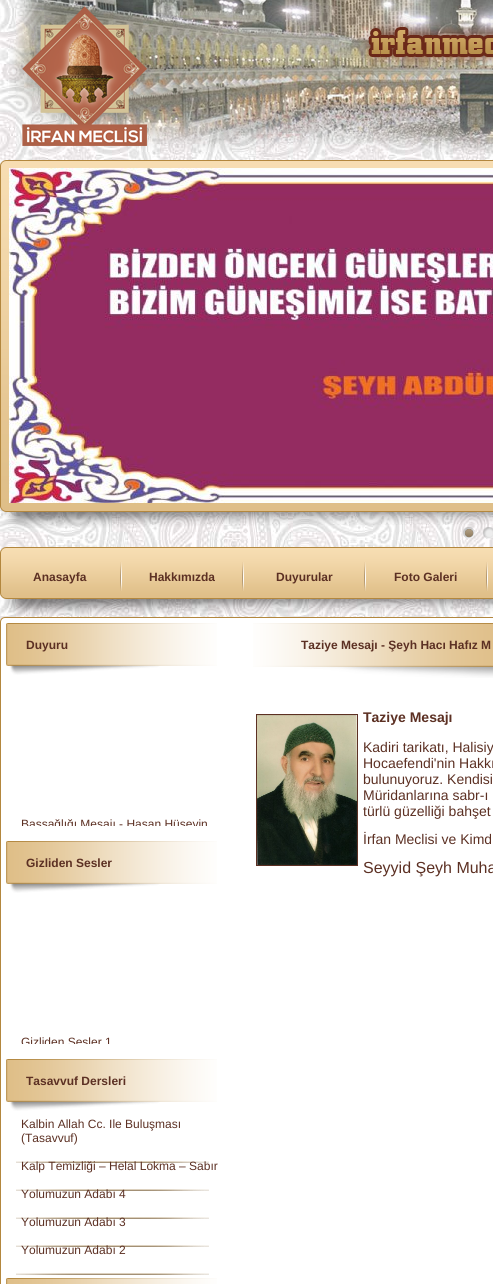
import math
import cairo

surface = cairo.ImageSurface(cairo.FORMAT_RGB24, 493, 1284)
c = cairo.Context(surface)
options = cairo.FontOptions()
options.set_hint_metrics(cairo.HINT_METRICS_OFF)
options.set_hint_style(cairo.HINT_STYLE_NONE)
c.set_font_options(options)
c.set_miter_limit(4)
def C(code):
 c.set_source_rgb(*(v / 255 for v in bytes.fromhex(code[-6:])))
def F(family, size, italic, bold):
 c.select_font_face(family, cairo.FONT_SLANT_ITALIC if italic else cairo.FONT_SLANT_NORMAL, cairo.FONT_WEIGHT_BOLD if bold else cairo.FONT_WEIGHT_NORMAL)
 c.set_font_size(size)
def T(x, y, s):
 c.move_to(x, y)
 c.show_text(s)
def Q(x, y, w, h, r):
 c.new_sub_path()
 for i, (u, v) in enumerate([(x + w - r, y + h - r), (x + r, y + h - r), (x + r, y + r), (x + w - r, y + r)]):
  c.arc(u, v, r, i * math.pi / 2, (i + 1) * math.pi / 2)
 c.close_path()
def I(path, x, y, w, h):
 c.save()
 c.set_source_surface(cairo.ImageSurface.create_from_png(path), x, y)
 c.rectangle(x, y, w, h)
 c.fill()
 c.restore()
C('ffffff')
c.paint()
I('1.png',0,0,493,622)
I('2.png',9,0,484,155)
I('3.png',0,160,493,368)
I('4.png',9,168,484,335)
I('5.png',463,527,12,12)
I('6.png',483,527,10,12)
I('7.png',0,547,493,69)
F('Liberation Sans',12,0,1)
C('5c3023')
T(33,581,'Anasayfa')
I('8.png',120,562,2,29)
T(149,581,'Hakkımızda')
I('8.png',242,562,2,29)
T(276,581,'Duyurular')
I('8.png',364,562,2,29)
T(394,581,'Foto Galeri')
I('8.png',486,562,2,29)
C('ffffff')
Q(.5,617.5,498,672,4.5)
c.fill_preserve()
C('b3873e')
c.set_line_width(1)
c.stroke()
I('9.png',6,623,211,52)
C('5c3023')
T(26,649,'Duyuru')
c.save()
c.rectangle(16,676,200,150)
c.clip()
F('Liberation Sans',12,0,0)
T(21,828,'Başsağlığı Mesajı - Hasan Hüseyin')
c.restore()
I('9.png',6,841,211,52)
T(26,867,'Gizliden Sesler')
c.save()
c.rectangle(16,894,200,150)
c.clip()
F('Liberation Sans',12,0,0)
T(21,1046,'Gizliden Sesler 1')
c.restore()
I('9.png',6,1059,211,52)
T(26,1085,'Tasavvuf Dersleri')
F('Liberation Sans',12,0,0)
T(21,1128,'Kalbin Allah Cc. Ile Buluşması')
T(21,1142,'(Tasavvuf)')
I('10.png',16,1161,193,2)
T(21,1170,'Kalp Temizliği – Helal Lokma – Sabır')
I('10.png',16,1189,193,2)
T(21,1198,'Yolumuzun Adabı 4')
I('10.png',16,1217,193,2)
T(21,1226,'Yolumuzun Adabı 3')
I('10.png',16,1245,193,2)
T(21,1254,'Yolumuzun Adabı 2')
I('10.png',16,1273,193,2)
I('11.png',6,1278,211,6)
I('12.png',253,623,240,55)
F('Liberation Sans',12,0,1)
T(301,649,'Taziye Mesajı - Şeyh Hacı Hafız M')
c.rectangle(256.5,714.5,101,151)
c.stroke()
I('13.png',257,715,100,150)
F('Liberation Sans',14,0,1)
T(363,722,'Taziye Mesajı')
F('Liberation Sans',14,0,0)
T(363,752,'Kadiri tarikatı, Halisiy')
T(363,768,'Hocaefendi\'nin Hakkı')
T(363,784,'bulunuyoruz. Kendisi')
T(363,800,'Müridanlarına sabr-ı')
T(363,816,'türlü güzelliği bahşet')
T(363,844,'İrfan Meclisi ve Kimd')
F('Liberation Sans',16,0,0)
T(363,873,'Seyyid Şeyh Muha')
surface.write_to_png('o.png')
